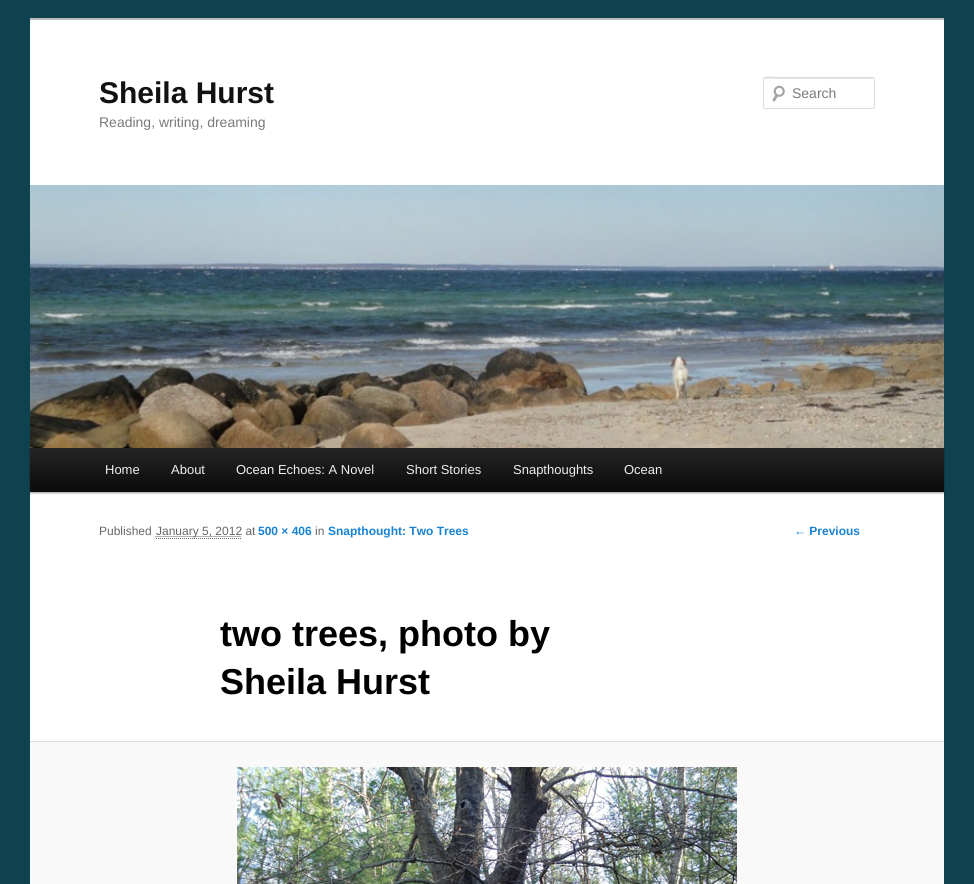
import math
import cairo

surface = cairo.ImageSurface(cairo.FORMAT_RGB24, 974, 884)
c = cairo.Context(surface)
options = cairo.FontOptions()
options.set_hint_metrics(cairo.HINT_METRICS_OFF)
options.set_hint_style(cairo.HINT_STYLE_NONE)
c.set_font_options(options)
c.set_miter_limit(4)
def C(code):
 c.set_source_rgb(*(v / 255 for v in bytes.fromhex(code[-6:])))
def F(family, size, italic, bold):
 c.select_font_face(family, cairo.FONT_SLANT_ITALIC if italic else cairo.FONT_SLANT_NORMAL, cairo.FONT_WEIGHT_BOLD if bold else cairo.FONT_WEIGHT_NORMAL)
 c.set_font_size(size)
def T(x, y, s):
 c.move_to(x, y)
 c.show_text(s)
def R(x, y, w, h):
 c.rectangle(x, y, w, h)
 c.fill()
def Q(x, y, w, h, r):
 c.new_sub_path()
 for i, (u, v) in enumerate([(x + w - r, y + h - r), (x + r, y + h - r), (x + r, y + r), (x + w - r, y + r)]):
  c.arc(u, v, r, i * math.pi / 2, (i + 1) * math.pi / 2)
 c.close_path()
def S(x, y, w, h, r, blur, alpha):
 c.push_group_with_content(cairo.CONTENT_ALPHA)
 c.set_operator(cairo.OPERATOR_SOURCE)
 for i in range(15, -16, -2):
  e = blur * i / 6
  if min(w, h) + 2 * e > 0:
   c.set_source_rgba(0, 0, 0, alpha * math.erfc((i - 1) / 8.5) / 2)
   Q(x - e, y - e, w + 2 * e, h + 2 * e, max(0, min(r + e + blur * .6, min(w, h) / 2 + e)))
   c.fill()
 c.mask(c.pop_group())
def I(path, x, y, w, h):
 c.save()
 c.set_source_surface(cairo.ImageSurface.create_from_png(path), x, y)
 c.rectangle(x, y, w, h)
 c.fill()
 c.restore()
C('0f424f')
c.paint()
C('ffffff')
R(30,20,914,721)
C('bbbbbb')
R(30,18,914,2)
F('Liberation Sans',30,0,1)
C('111111')
T(99,103,'Sheila Hurst')
F('Liberation Sans',14,0,0)
C('7a7a7a')
T(99,127,'Reading, writing, dreaming')
I('1.png',772,85,13,17)
C('e6e6e6')
c.new_path()
c.move_to(765,79)
c.line_to(874,79)
c.line_to(874,80)
c.line_to(873,78)
c.line_to(783,78)
c.curve_to(779,78,764,73,764,80)
c.curve_to(764,79,764,79,765,79)
c.close_path()
c.fill()
Q(763.5,77.5,111,31,1.5)
C('dddddd')
c.set_line_width(1)
c.stroke()
C('7a7a7a')
T(792,98,'Search')
C('000000')
S(30,449,914,44,0,1,.4)
I('2.png',30,185,914,263)
gradient = cairo.LinearGradient(487,448,487,492)
gradient.add_color_stop_rgba(0,0.145,0.145,0.145,1)
gradient.add_color_stop_rgba(1,0.039,0.039,0.039,1)
c.set_source(gradient)
R(30,448,914,44)
F('Liberation Sans',13,0,0)
C('eeeeee')
T(105,474,'Home')
T(171,474,'About')
T(236,474,'Ocean Echoes: A Novel')
T(406,474,'Short Stories')
T(513,474,'Snapthoughts')
T(624,474,'Ocean')
F('Liberation Sans',12,0,0)
C('666666')
T(99,535,'Published')
c.new_path()
c.move_to(155.5,536.5)
c.line_to(241.5,536.5)
c.set_dash([1,1])
c.stroke()
T(156,535,'January 5, 2012 at')
c.new_path()
c.move_to(156,538.5)
c.line_to(242,538.5)
c.stroke()
F('Liberation Sans',12,0,1)
C('1982d1')
T(258,535,'500 × 406')
F('Liberation Sans',12,0,0)
C('666666')
T(315,535,'in')
F('Liberation Sans',12,0,1)
C('1982d1')
T(328,535,'Snapthought: Two Trees')
F('Liberation Sans',36,0,1)
C('000000')
T(220,646,'two trees, photo by')
T(220,694,'Sheila Hurst')
C('f9f9f9')
R(30,742,914,142)
C('dddddd')
R(30,741,914,1)
I('3.png',237,767,500,117)
F('Liberation Sans',12,0,1)
C('1982d1')
T(794,535,'← Previous')
surface.write_to_png('o.png')
